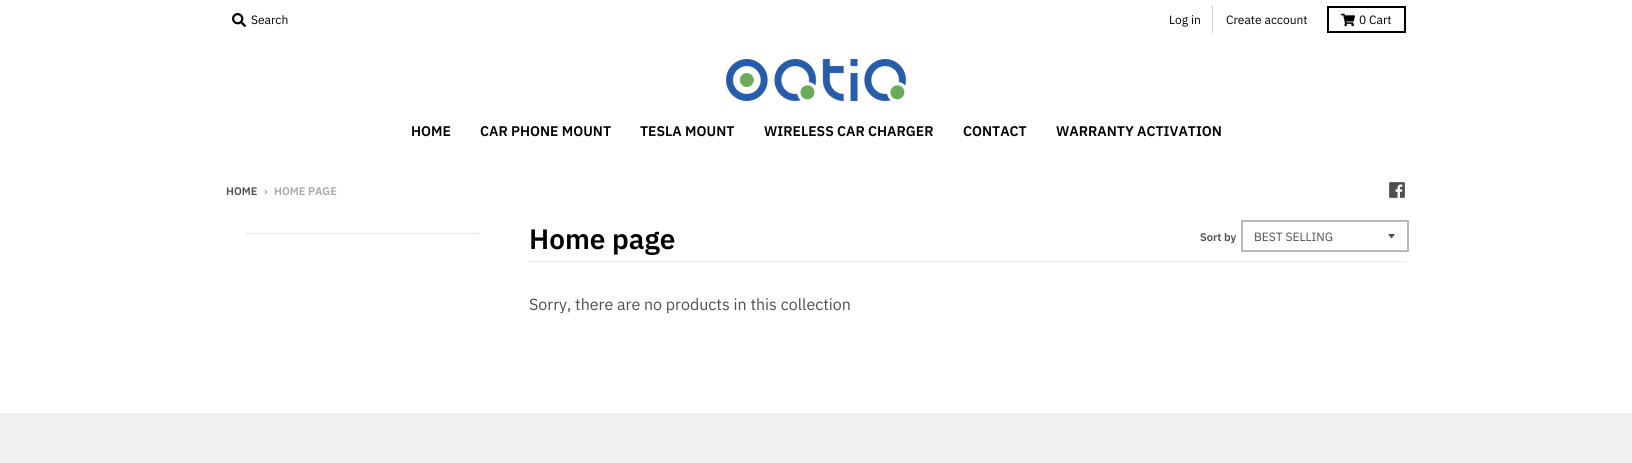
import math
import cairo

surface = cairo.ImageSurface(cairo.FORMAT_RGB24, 1632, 463)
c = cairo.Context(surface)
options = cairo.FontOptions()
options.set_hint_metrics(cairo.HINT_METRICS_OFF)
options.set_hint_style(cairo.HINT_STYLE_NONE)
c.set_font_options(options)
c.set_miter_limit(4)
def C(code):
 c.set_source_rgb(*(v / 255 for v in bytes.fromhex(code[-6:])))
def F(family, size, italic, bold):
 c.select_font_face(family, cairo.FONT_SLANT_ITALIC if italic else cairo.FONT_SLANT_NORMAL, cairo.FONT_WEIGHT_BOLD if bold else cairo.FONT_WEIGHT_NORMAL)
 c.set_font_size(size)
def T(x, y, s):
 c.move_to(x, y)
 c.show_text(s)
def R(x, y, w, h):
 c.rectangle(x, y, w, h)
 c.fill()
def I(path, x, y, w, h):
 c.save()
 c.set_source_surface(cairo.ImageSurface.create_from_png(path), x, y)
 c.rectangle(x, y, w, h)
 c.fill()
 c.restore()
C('ffffff')
c.paint()
I('1.png',232,13,14,14)
F('IBM Plex Sans',12,0,0)
C('000000')
T(251,24,'Search')
C('cccccc')
R(1212,6,1,27)
C('000000')
T(1169,24,'Log in')
T(1226,24,'Create account')
c.rectangle(1328,7,77,25)
c.stroke()
I('2.png',1341,13,14,14)
T(1359,24,'0 Cart')
I('3.png',726,59,180,42)
F('IBM Plex Sans SemiBold',14,0,0)
T(411,136,'HOME')
T(480,136,'CAR PHONE MOUNT')
T(640,136,'TESLA MOUNT')
T(764,136,'WIRELESS CAR CHARGER')
T(963,136,'CONTACT')
T(1056,136,'WARRANTY ACTIVATION')
F('IBM Plex Sans SemiBold',11,0,0)
C('4f4f4f')
T(226,195,'HOME')
C('a7a7a7')
T(264,195,'›')
T(274,195,'HOME PAGE')
I('4.png',1389,182,16,16)
C('e5e5e5')
R(246,233,233,1)
C('ededed')
R(529,261,877,1)
F('IBM Plex Sans SemiBold',28,0,0)
C('000000')
T(529,249,'Home page')
F('IBM Plex Sans SemiBold',11,0,0)
C('4f4f4f')
T(1200,241,'Sort by')
c.new_path()
c.move_to(1388,234)
c.curve_to(1392.5,239.5,1390.5,239.5,1395,234)
c.close_path()
c.fill()
c.rectangle(1242,221,166,30)
C('b8b8b8')
c.stroke()
F('IBM Plex Sans',12,0,0)
C('4f4f4f')
T(1254,241,'BEST SELLING')
F('IBM Plex Sans',16,0,0)
T(529,310,'Sorry, there are no products in this collection')
C('f1f1f1')
R(0,413,1632,50)
surface.write_to_png('o.png')
